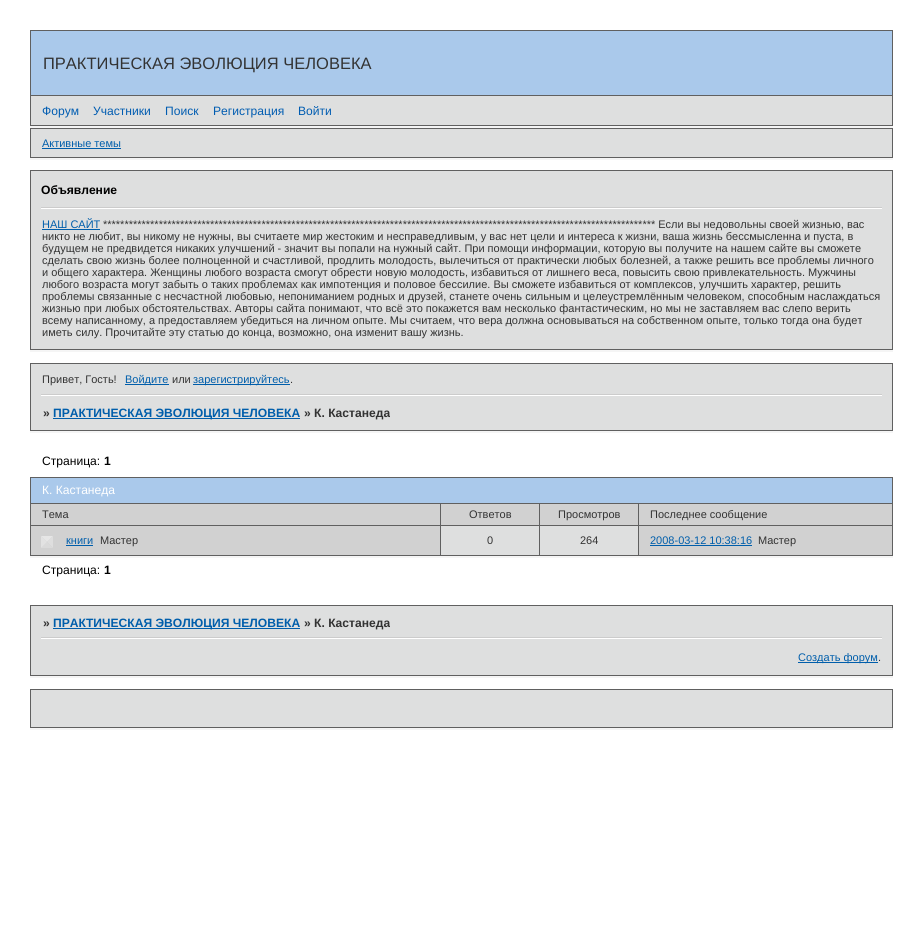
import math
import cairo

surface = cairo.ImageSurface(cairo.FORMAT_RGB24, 923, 936)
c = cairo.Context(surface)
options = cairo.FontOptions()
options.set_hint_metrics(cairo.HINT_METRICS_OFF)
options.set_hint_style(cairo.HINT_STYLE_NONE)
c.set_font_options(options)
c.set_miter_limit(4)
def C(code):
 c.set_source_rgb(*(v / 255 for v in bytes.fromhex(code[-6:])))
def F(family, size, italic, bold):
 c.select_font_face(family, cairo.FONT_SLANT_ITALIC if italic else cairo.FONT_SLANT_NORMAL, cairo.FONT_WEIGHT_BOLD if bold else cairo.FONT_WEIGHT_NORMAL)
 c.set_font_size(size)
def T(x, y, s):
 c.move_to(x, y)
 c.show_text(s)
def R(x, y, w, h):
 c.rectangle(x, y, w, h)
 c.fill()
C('ffffff')
c.paint()
C('aac9eb')
R(31,31,861,64)
C('606060')
R(30,30,863,1)
R(892,30,1,65)
R(30,30,1,65)
F('Liberation Sans',16.5,0,0)
C('333333')
T(43,69,'ПРАКТИЧЕСКАЯ ЭВОЛЮЦИЯ ЧЕЛОВЕКА')
C('f5f5f5')
R(30,126,863,2)
C('dedfdf')
c.rectangle(30.5,95.5,862,30)
c.fill_preserve()
C('606060')
c.set_line_width(1)
c.stroke()
F('Liberation Sans',12.1,0,0)
C('005cb1')
T(42,115,'Форум')
T(93,115,'Участники')
T(165,115,'Поиск')
T(213,115,'Регистрация')
T(298,115,'Войти')
C('f5f5f5')
R(30,158,863,2)
C('dedfdf')
c.rectangle(30.5,128.5,862,29)
c.fill_preserve()
C('606060')
c.stroke()
F('Liberation Sans',11,0,0)
C('005eab')
T(42,147,'Активные темы')
R(42,148,79,1)
C('f5f5f5')
R(30,350,863,2)
C('dedfdf')
c.rectangle(30.5,170.5,862,179)
c.fill_preserve()
C('606060')
c.stroke()
C('ffffff')
R(41,208,841,1)
C('cccccc')
R(41,207,841,1)
F('Liberation Sans',12.1,0,1)
C('000000')
T(41,194,'Объявление')
F('Liberation Sans',11,0,0)
C('005eab')
T(42,228,'НАШ САЙТ')
R(42,229,58,1)
C('333333')
T(103,228,'********************************************************************************************************************************* Если вы недовольны своей жизнью, вас')
T(42,240,'никто не любит, вы никому не нужны, вы считаете мир жестоким и несправедливым, у вас нет цели и интереса к жизни, ваша жизнь бессмысленна и пуста, в')
T(42,252,'будущем не предвидется никаких улучшений - значит вы попали на нужный сайт. При помощи информации, которую вы получите на нашем сайте вы сможете')
T(42,264,'сделать свою жизнь более полноценной и счастливой, продлить молодость, вылечиться от практически любых болезней, а также решить все проблемы личного')
T(42,276,'и общего характера. Женщины любого возраста смогут обрести новую молодость, избавиться от лишнего веса, повысить свою привлекательность. Мужчины')
T(42,288,'любого возраста могут забыть о таких проблемах как импотенция и половое бессилие. Вы сможете избавиться от комплексов, улучшить характер, решить')
T(42,300,'проблемы связанные с несчастной любовью, непониманием родных и друзей, станете очень сильным и целеустремлённым человеком, способным наслаждаться')
T(42,312,'жизнью при любых обстоятельствах. Авторы сайта понимают, что всё это покажется вам несколько фантастическим, но мы не заставляем вас слепо верить')
T(42,324,'всему написанному, а предоставляем убедиться на личном опыте. Мы считаем, что вера должна основываться на собственном опыте, только тогда она будет')
T(42,336,'иметь силу. Прочитайте эту статью до конца, возможно, она изменит вашу жизнь.')
C('dedfdf')
R(31,364,861,66)
C('606060')
R(30,363,863,1)
R(892,363,1,68)
R(30,363,1,33)
C('333333')
T(42,383,'Привет, Гость!')
C('005eab')
R(125,384,44,1)
T(125,383,'Войдите')
C('333333')
T(172,383,'или')
C('005eab')
R(193,384,97,1)
T(193,383,'зарегистрируйтесь')
C('333333')
T(290,383,'.')
C('cccccc')
R(41,394,841,1)
C('ffffff')
R(41,395,841,1)
C('f5f5f5')
R(30,431,863,2)
C('606060')
R(30,430,863,1)
R(30,394,1,37)
F('Liberation Sans',12.1,0,1)
C('333333')
T(43,417,'»')
C('005eab')
R(53,418,247,1)
T(53,417,'ПРАКТИЧЕСКАЯ ЭВОЛЮЦИЯ ЧЕЛОВЕКА')
C('333333')
T(304,417,'» К. Кастанеда')
F('Liberation Sans',12.1,0,0)
C('000000')
T(42,465,'Страница:')
F('Liberation Sans',12.1,0,1)
T(104,465,'1')
C('aac9eb')
R(31,478,861,25)
C('606060')
R(30,477,863,1)
R(892,477,1,26)
R(30,477,1,26)
F('Liberation Sans',12.1,0,0)
C('ffffff')
T(42,494,'К. Кастанеда')
C('f5f5f5')
R(30,556,863,2)
C('d1d1d1')
c.rectangle(30.5,503.5,862,52)
c.fill_preserve()
C('606060')
c.stroke()
F('Liberation Sans',11,0,0)
C('333333')
T(42,518,'Тема')
C('606060')
R(440,504,1,21)
C('333333')
T(469,518,'Ответов')
C('606060')
R(539,504,1,21)
C('333333')
T(558,518,'Просмотров')
C('606060')
R(31,525,861,1)
R(638,504,1,51)
C('333333')
T(650,518,'Последнее сообщение')
C('e6e6e6')
c.new_path()
c.move_to(41,536)
c.line_to(53,536)
c.line_to(47,542)
c.close_path()
c.fill()
C('dedede')
c.new_path()
c.move_to(53,536)
c.line_to(53,548)
c.line_to(47,542)
c.close_path()
c.fill()
C('dadada')
c.new_path()
c.move_to(53,548)
c.line_to(41,548)
c.line_to(47,542)
c.close_path()
c.fill()
C('e2e2e2')
c.new_path()
c.move_to(41,548)
c.line_to(41,536)
c.line_to(47,542)
c.close_path()
c.fill()
C('005eab')
T(66,544,'книги')
R(66,545,27,1)
C('333333')
T(100,544,'Мастер')
C('dedfdf')
R(441,526,98,29)
C('606060')
R(440,525,1,30)
C('333333')
T(487,544,'0')
C('dedfdf')
R(540,526,98,29)
C('606060')
R(539,525,1,30)
C('333333')
T(580,544,'264')
C('005eab')
T(650,544,'2008-03-12 10:38:16')
R(650,545,102,1)
C('333333')
T(758,544,'Мастер')
F('Liberation Sans',12.1,0,0)
C('000000')
T(42,574,'Страница:')
F('Liberation Sans',12.1,0,1)
T(104,574,'1')
C('606060')
R(30,605,863,1)
R(892,637,1,39)
R(892,605,1,34)
R(30,675,863,1)
R(30,637,1,39)
R(30,605,1,34)
C('dedfdf')
R(31,606,861,69)
C('333333')
T(43,627,'»')
C('005eab')
R(53,628,247,1)
T(53,627,'ПРАКТИЧЕСКАЯ ЭВОЛЮЦИЯ ЧЕЛОВЕКА')
C('333333')
T(304,627,'» К. Кастанеда')
C('cccccc')
R(41,637,841,1)
C('ffffff')
R(41,638,841,1)
C('f5f5f5')
R(30,676,863,2)
C('005eab')
R(798,662,80,1)
F('Liberation Sans',11,0,0)
T(798,661,'Создать форум')
C('333333')
T(878,661,'.')
C('f5f5f5')
R(30,728,863,2)
C('dedfdf')
c.rectangle(30.5,689.5,862,38)
c.fill_preserve()
C('606060')
c.stroke()
surface.write_to_png('o.png')
